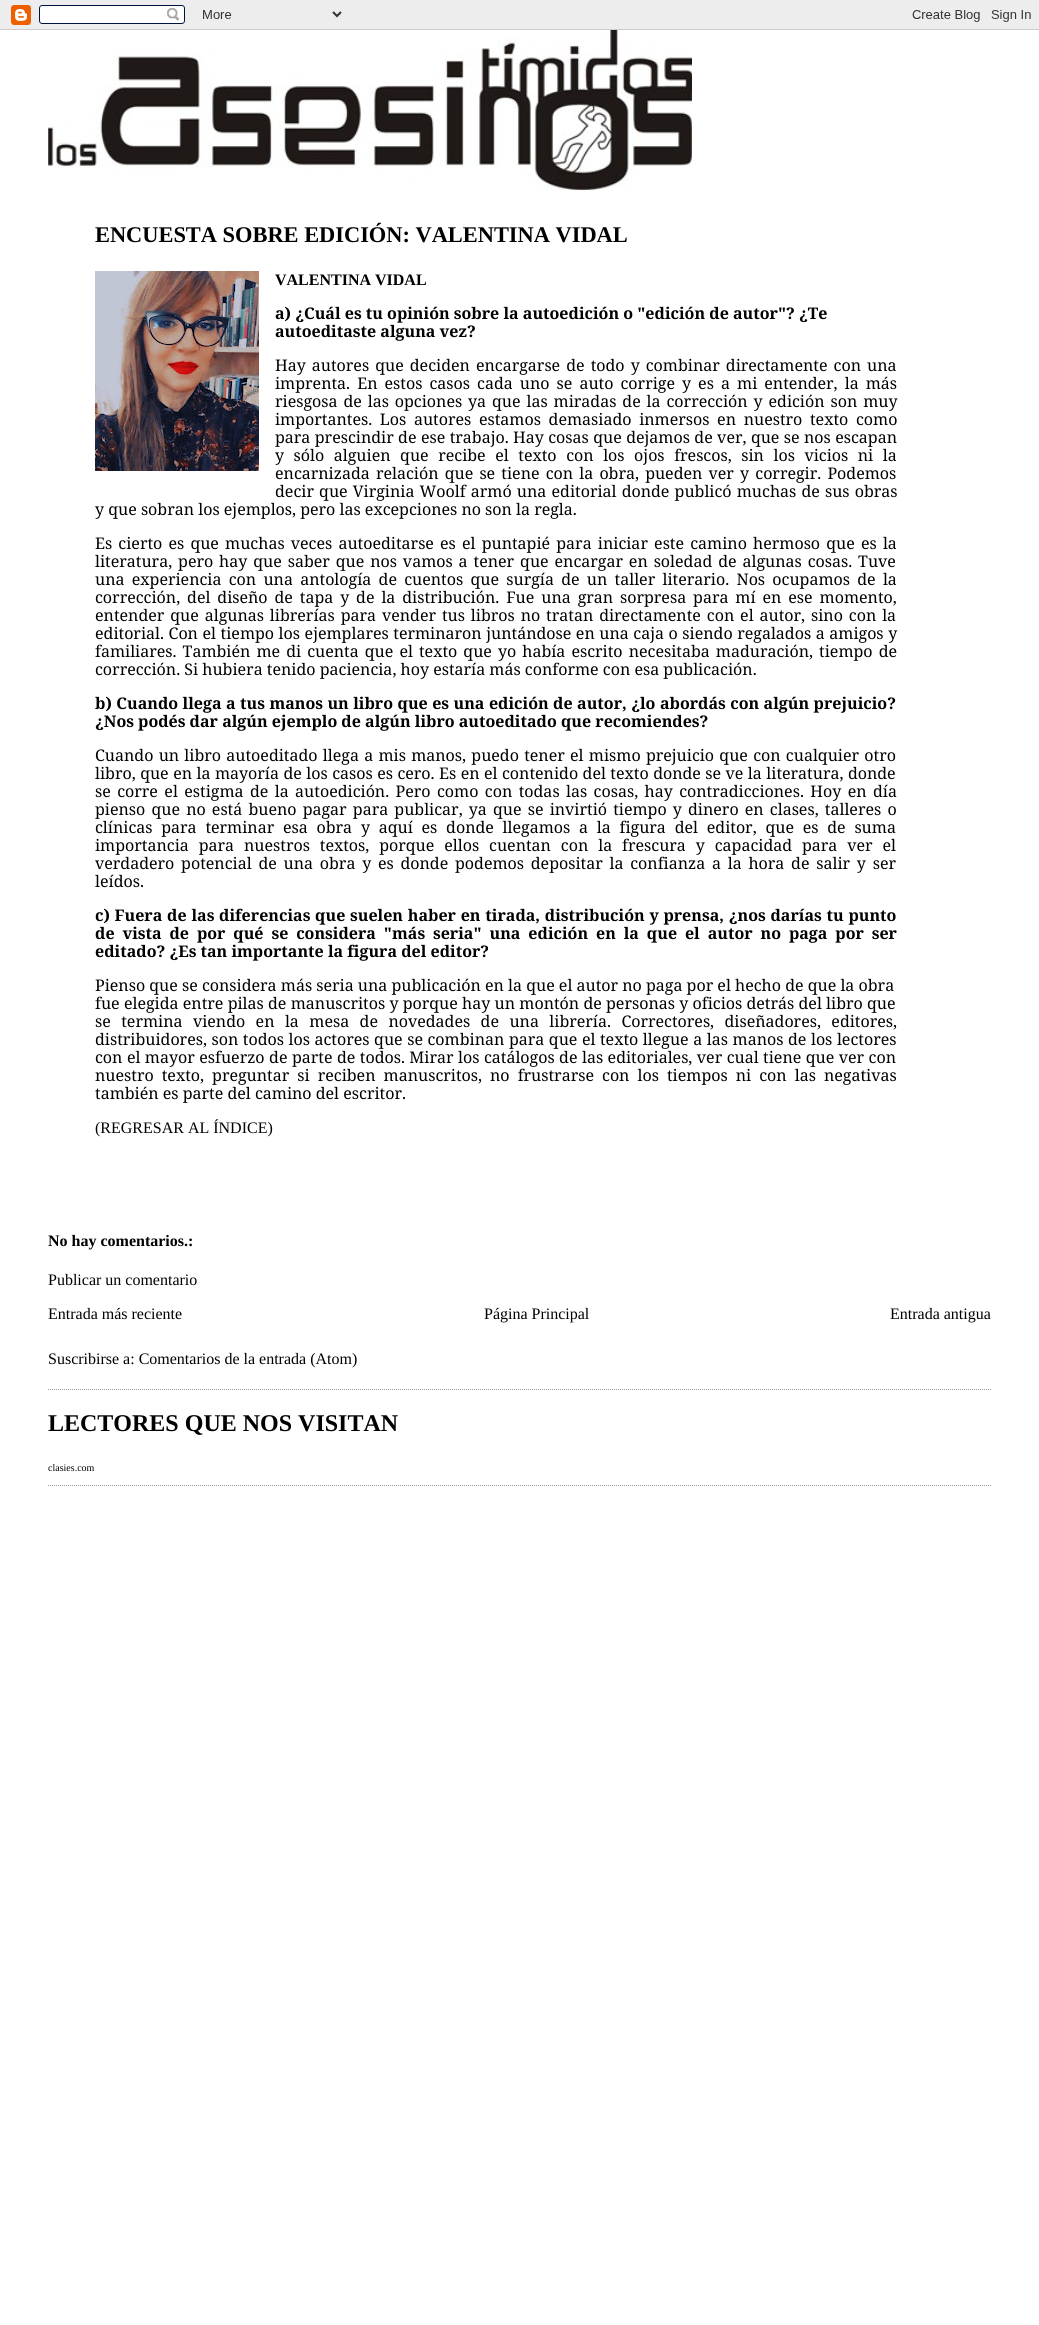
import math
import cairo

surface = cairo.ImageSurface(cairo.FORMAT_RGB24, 1039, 2325)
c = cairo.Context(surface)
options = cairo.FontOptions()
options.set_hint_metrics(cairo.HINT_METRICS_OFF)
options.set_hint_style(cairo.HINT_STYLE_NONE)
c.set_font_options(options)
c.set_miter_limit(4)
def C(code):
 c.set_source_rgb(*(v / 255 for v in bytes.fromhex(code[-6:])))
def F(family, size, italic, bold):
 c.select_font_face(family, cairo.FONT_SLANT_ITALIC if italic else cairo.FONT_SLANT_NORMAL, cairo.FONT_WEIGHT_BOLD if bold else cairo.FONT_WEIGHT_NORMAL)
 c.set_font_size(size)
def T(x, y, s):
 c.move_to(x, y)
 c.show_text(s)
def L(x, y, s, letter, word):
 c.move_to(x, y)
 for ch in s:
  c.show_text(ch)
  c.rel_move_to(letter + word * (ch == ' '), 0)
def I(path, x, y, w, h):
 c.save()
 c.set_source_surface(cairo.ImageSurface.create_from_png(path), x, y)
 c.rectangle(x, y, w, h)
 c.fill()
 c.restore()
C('ffffff')
c.paint()
I('1.png',0,0,1039,30)
I('2.png',48,30,644,160)
c.new_path()
c.move_to(48,1389.5)
c.line_to(991,1389.5)
C('999999')
c.set_line_width(1)
c.set_dash([1,1])
c.stroke()
F('Liberation Serif',22.4,0,1)
C('000000')
T(95,242,'ENCUESTA SOBRE EDICIÓN: VALENTINA VIDAL')
I('3.png',95,271,164,200)
F('Liberation Serif',16,0,1)
T(275,285,'VALENTINA VIDAL')
F('Noto Serif',16,0,1)
T(275,319,'a) ¿Cuál es tu opinión sobre la autoedición o "edición de autor"? ¿Te')
T(275,337,'autoeditaste alguna vez?')
F('Noto Serif',16,0,0)
L(275,371,'Hay autores que deciden encargarse de todo y combinar directamente con una',0,1.9)
L(275,389,'imprenta. En estos casos cada uno se auto corrige y es a mi entender, la más',0,2.9)
L(275,407,'riesgosa de las opciones ya que las miradas de la corrección y edición son muy',0,1.75)
L(275,425,'importantes. Los autores estamos demasiado inmersos en nuestro texto como',0,3.5)
L(275,443,'para prescindir de ese trabajo. Hay cosas que dejamos de ver, que se nos escapan',0,.25)
L(275,461,'y sólo alguien que recibe el texto con los ojos frescos, sin los vicios ni la',0,5.4)
L(275,479,'encarnizada relación que se tiene con la obra, pueden ver y corregir. Podemos',0,2)
L(275,497,'decir que Virginia Woolf armó una editorial donde publicó muchas de sus obras',0,1)
T(95,515,'y que sobran los ejemplos, pero las excepciones no son la regla.')
L(95,549,'Es cierto es que muchas veces autoeditarse es el puntapié para iniciar este camino hermoso que es la',0,2)
L(95,567,'literatura, pero hay que saber que nos vamos a tener que encargar en soledad de algunas cosas. Tuve',0,1.75)
L(95,585,'una experiencia con una antología de cuentos que surgía de un taller literario. Nos ocupamos de la',0,3.1)
L(95,603,'corrección, del diseño de tapa y de la distribución. Fue una gran sorpresa para mí en ese momento,',0,2.75)
L(95,621,'entender que algunas librerías para vender tus libros no tratan directamente con el autor, sino con la',0,1.75)
L(95,639,'editorial. Con el tiempo los ejemplares terminaron juntándose en una caja o siendo regalados a amigos y',0,.4)
L(95,657,'familiares. También me di cuenta que el texto que yo había escrito necesitaba maduración, tiempo de',0,1.9)
T(95,675,'corrección. Si hubiera tenido paciencia, hoy estaría más conforme con esa publicación.')
F('Noto Serif',16,0,1)
L(95,709,'b) Cuando llega a tus manos un libro que es una edición de autor, ¿lo abordás con algún prejuicio?',0,.3)
T(95,727,'¿Nos podés dar algún ejemplo de algún libro autoeditado que recomiendes?')
F('Noto Serif',16,0,0)
L(95,761,'Cuando un libro autoeditado llega a mis manos, puedo tener el mismo prejuicio que con cualquier otro',0,1.1)
L(95,779,'libro, que en la mayoría de los casos es cero. Es en el contenido del texto donde se ve la literatura, donde',0,.3)
L(95,797,'se corre el estigma de la autoedición. Pero como con todas las cosas, hay contradicciones. Hoy en día',0,2.25)
L(95,815,'pienso que no está bueno pagar para publicar, ya que se invirtió tiempo y dinero en clases, talleres o',0,2)
L(95,833,'clínicas para terminar esa obra y aquí es donde llegamos a la figura del editor, que es de suma',0,4.6)
L(95,851,'importancia para nuestros textos, porque ellos cuentan con la frescura y capacidad para ver el',0,5.75)
L(95,869,'verdadero potencial de una obra y es donde podemos depositar la confianza a la hora de salir y ser',0,2.6)
T(95,887,'leídos.')
F('Noto Serif',16,0,1)
L(95,921,'c) Fuera de las diferencias que suelen haber en tirada, distribución y prensa, ¿nos darías tu punto',0,.6)
L(95,939,'de vista de por qué se considera "más seria" una edición en la que el autor no paga por ser',0,3.75)
T(95,957,'editado? ¿Es tan importante la figura del editor?')
F('Noto Serif',16,0,0)
T(95,991,'Pienso que se considera más seria una publicación en la que el autor no paga por el hecho de que la obra')
L(95,1009,'fue elegida entre pilas de manuscritos y porque hay un montón de personas y oficios detrás del libro que',0,.1)
L(95,1027,'se termina viendo en la mesa de novedades de una librería. Correctores, diseñadores, editores,',0,6.25)
L(95,1045,'distribuidores, son todos los actores que se combinan para que el texto llegue a las manos de los lectores',0,.4)
L(95,1063,'con el mayor esfuerzo de parte de todos. Mirar los catálogos de las editoriales, ver cual tiene que ver con',0,.3)
L(95,1081,'nuestro texto, preguntar si reciben manuscritos, no frustrarse con los tiempos ni con las negativas',0,3.9)
T(95,1099,'también es parte del camino del escritor.')
F('Liberation Serif',16,0,0)
T(95,1133,'(REGRESAR AL ÍNDICE)')
F('Liberation Serif',16,0,1)
T(48,1246,'No hay comentarios.:')
F('Liberation Serif',16,0,0)
T(48,1285,'Publicar un comentario')
T(48,1319,'Entrada más reciente')
T(484,1319,'Página Principal')
T(890,1319,'Entrada antigua')
T(48,1364,'Suscribirse a: Comentarios de la entrada (Atom)')
c.new_path()
c.move_to(48,1485.5)
c.line_to(991,1485.5)
C('999999')
c.stroke()
F('Liberation Serif',24,0,1)
C('000000')
T(48,1431,'LECTORES QUE NOS VISITAN')
F('Liberation Serif',10,0,0)
T(48,1471,'clasies.com')
surface.write_to_png('o.png')
